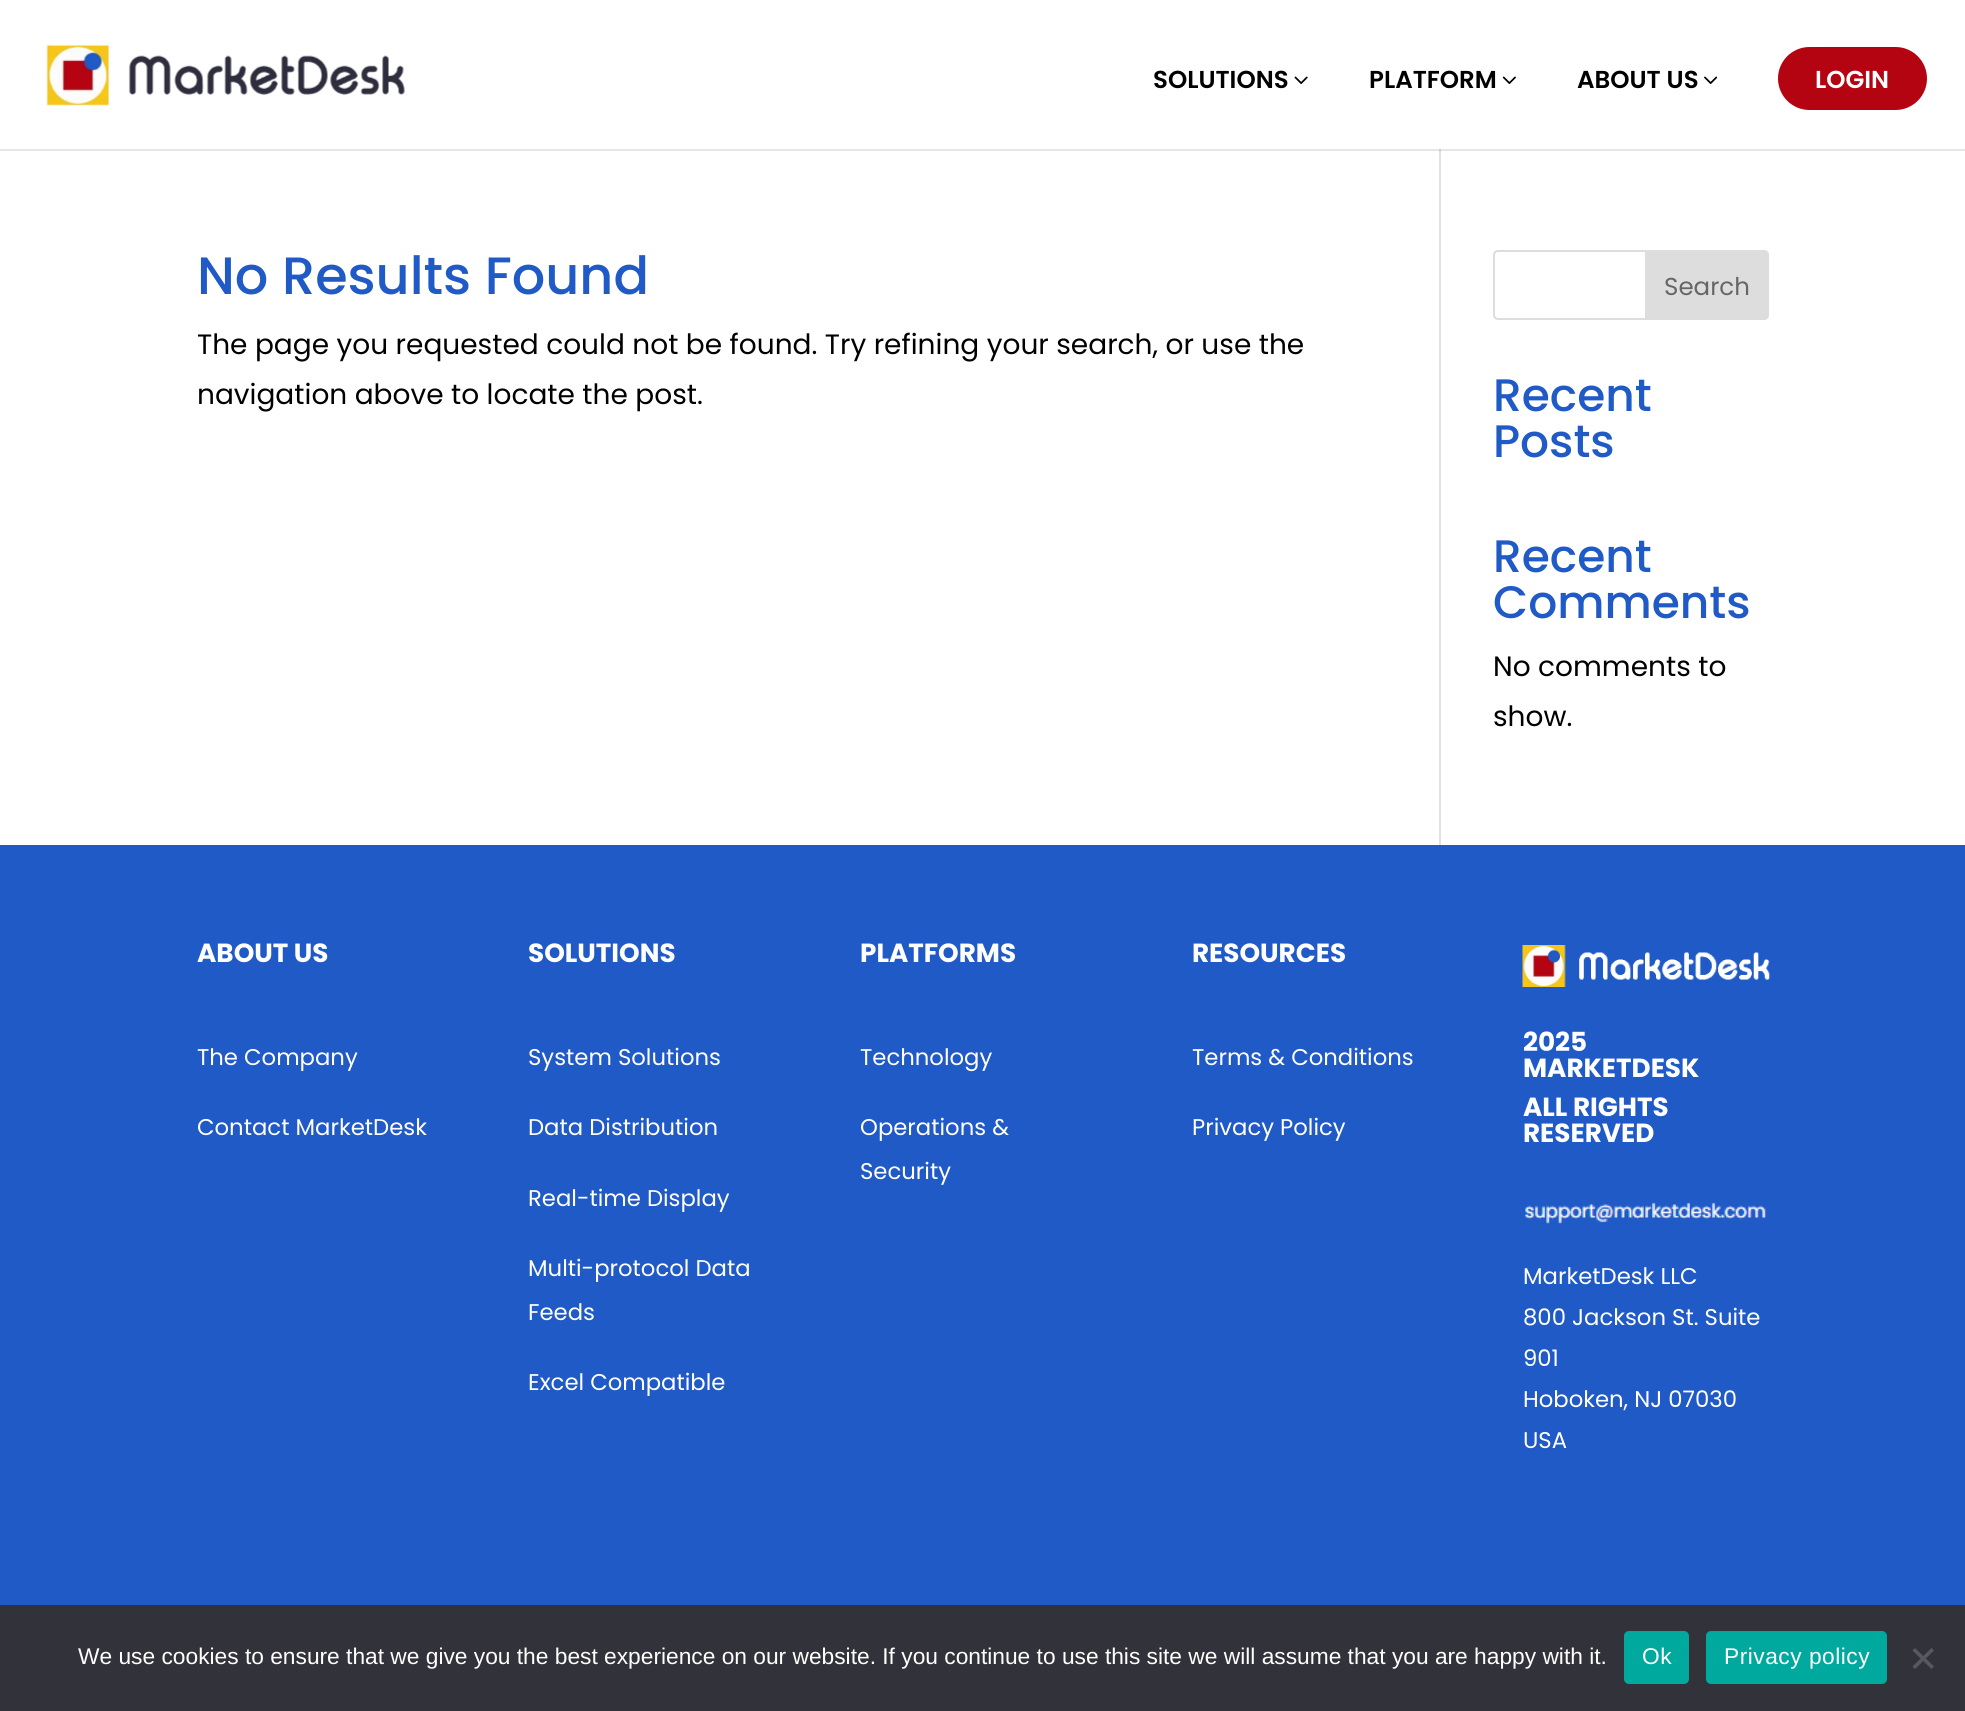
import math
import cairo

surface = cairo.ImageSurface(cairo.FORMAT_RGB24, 1965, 1711)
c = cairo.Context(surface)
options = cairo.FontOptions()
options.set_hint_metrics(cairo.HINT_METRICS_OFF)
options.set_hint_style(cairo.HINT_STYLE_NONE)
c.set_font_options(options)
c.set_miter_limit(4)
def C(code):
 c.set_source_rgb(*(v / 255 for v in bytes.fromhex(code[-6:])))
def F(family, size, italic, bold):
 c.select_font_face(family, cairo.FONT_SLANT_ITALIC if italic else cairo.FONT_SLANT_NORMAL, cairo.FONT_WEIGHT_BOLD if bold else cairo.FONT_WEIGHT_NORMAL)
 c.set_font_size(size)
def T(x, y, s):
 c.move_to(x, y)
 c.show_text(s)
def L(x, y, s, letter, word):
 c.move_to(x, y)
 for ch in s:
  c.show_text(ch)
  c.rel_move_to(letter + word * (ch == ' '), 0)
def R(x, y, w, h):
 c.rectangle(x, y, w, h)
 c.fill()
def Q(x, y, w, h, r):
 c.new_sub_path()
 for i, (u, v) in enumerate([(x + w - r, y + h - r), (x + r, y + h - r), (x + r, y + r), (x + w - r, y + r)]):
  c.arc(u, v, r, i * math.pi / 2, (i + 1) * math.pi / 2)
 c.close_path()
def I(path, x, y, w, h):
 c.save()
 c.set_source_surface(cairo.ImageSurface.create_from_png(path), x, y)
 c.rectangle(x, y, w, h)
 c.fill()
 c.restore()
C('ffffff')
c.paint()
C('e6e6e6')
R(0,149,1965,2)
I('1.png',46,44,359,62)
F('Poppins SemiBold',24.5,0,0)
C('000000')
T(1153,88,'SOLUTIONS')
I('2.png',1294,76,14,8)
T(1369,88,'PLATFORM')
I('3.png',1502,76,14,8)
T(1577,88,'ABOUT US')
I('4.png',1704,76,14,8)
C('b40411')
Q(1779,48,147,61,30.5)
c.fill_preserve()
c.stroke()
C('ffffff')
T(1815,88,'LOGIN')
C('e2e2e2')
R(1439,149,2,696)
C('cbcbcb')
R(1439,149,2,2)
F('Poppins Medium',52.5,0,0)
C('205ac6')
T(197,294,'No Results Found')
F('Poppins',28,0,0)
C('000000')
T(197,354,'The page you requested could not be found. Try refining your search, or use the')
T(197,404,'navigation above to locate the post.')
Q(1494,251,274,68,4)
C('dddddd')
c.stroke()
c.new_path()
c.move_to(1646,251)
c.line_to(1764,251)
c.curve_to(1766,251,1768,253,1768,255)
c.line_to(1768,315)
c.curve_to(1768,317,1766,319,1764,319)
c.line_to(1646,319)
c.close_path()
c.fill_preserve()
c.stroke()
F('Poppins',24.5,0,0)
C('666666')
T(1664,295,'Search')
F('Poppins Medium',45.5,0,0)
C('205ac6')
T(1493,411,'Recent')
T(1493,457,'Posts')
T(1493,572,'Recent')
T(1493,618,'Comments')
F('Poppins',28,0,0)
C('000000')
T(1493,676,'No comments to')
T(1493,726,'show.')
C('205ac6')
R(0,845,1965,760)
F('Poppins',26.25,0,1)
C('ffffff')
T(197,962,'ABOUT US')
F('Poppins',22.75,0,0)
T(197,1065,'The Company')
T(197,1135,'Contact MarketDesk')
F('Poppins',26.25,0,1)
T(528,962,'SOLUTIONS')
F('Poppins',22.75,0,0)
T(528,1065,'System Solutions')
T(528,1135,'Data Distribution')
T(528,1206,'Real-time Display')
T(528,1276,'Multi-protocol Data')
T(528,1320,'Feeds')
T(528,1390,'Excel Compatible')
F('Poppins',26.25,0,1)
T(860,962,'PLATFORMS')
F('Poppins',22.75,0,0)
T(860,1065,'Technology')
T(860,1135,'Operations &')
T(860,1179,'Security')
F('Poppins',26.25,0,1)
T(1192,962,'RESOURCES')
F('Poppins',22.75,0,0)
T(1192,1065,'Terms & Conditions')
T(1192,1135,'Privacy Policy')
I('5.png',1522,945,248,42)
F('Poppins',26.25,0,1)
T(1523,1051,'2025')
T(1523,1077,'MARKETDESK')
T(1523,1116,'ALL RIGHTS')
T(1523,1142,'RESERVED')
I('6.png',1524,1202,242,22)
F('Poppins',22.75,0,0)
T(1523,1284,'MarketDesk LLC')
T(1523,1325,'800 Jackson St. Suite')
T(1523,1366,'901')
T(1523,1407,'Hoboken, NJ 07030')
T(1523,1448,'USA')
C('32323a')
R(0,1605,1965,106)
F('Liberation Sans',22.75,0,0)
C('ffffff')
T(78,1664,'We use cookies to ensure that we give you the best experience on our website. If you continue to use this site we will assume that you are happy with it.')
C('00a99d')
Q(1624,1631,65,53,5)
c.fill()
C('ffffff')
L(1642,1664,'Ok',.5,0)
C('00a99d')
Q(1706,1631,181,53,5)
c.fill()
C('ffffff')
L(1724,1664,'Privacy policy',.5,0)
C('59595d')
c.new_path()
c.move_to(1931.5,1648)
c.line_to(1934,1650.5)
c.line_to(1915,1669)
c.line_to(1912.5,1666.5)
c.close_path()
c.fill()
c.new_path()
c.move_to(1912.5,1650.5)
c.line_to(1915,1648)
c.line_to(1934,1666.5)
c.line_to(1931.5,1669)
c.close_path()
c.fill()
surface.write_to_png('o.png')
